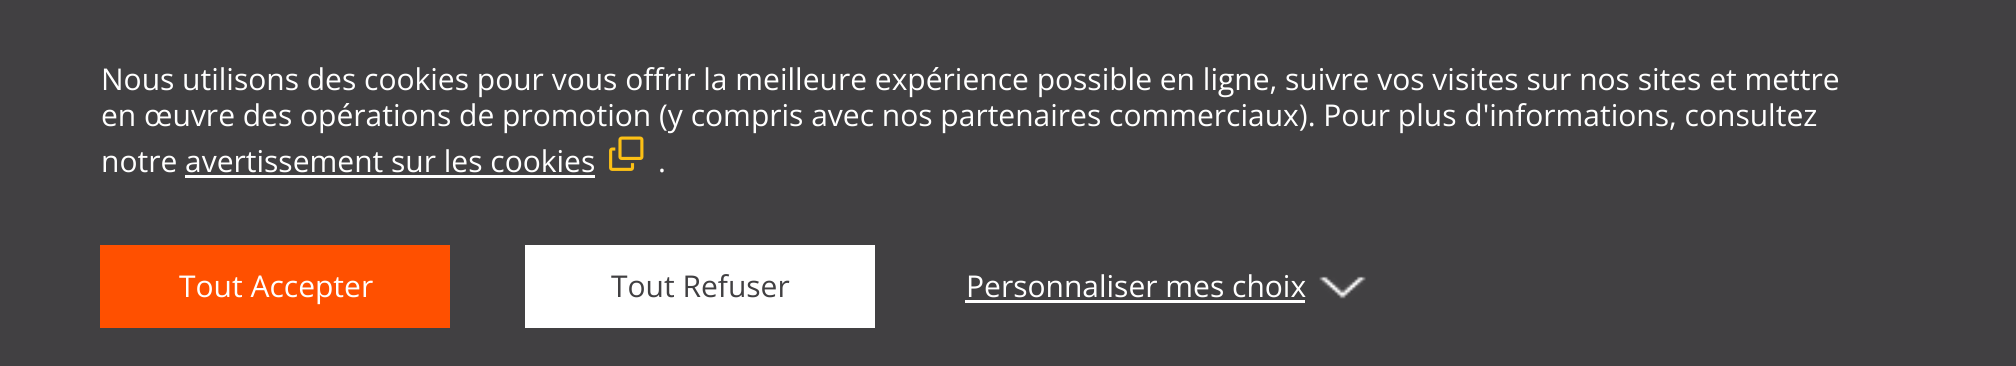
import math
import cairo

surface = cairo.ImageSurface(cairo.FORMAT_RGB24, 2016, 366)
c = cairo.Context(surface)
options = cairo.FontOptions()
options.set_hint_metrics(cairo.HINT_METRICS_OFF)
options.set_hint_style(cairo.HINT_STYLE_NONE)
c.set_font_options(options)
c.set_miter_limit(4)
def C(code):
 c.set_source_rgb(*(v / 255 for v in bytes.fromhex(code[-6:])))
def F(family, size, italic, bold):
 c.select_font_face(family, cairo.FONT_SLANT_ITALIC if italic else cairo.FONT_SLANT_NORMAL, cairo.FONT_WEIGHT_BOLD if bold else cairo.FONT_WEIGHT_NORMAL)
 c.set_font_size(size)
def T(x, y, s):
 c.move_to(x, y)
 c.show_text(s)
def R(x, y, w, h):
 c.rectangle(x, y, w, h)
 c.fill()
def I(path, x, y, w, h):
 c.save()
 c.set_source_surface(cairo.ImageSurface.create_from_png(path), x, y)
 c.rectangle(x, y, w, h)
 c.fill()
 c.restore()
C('414042')
c.paint()
F('Open Sans',30,0,0)
C('ffffff')
T(101,90,'Nous utilisons des cookies pour vous offrir la meilleure expérience possible en ligne, suivre vos visites sur nos sites et mettre')
T(101,126,'en œuvre des opérations de promotion (y compris avec nos partenaires commerciaux). Pour plus d\'informations, consultez')
I('1.png',609,136,35,35)
R(185,175,410,3)
T(101,172,'notre avertissement sur les cookies')
T(658,172,'.')
C('ff5000')
R(100,245,350,83)
C('ffffff')
T(179,297,'Tout Accepter')
R(525,245,350,83)
C('414042')
T(611,297,'Tout Refuser')
C('ffffff')
T(966,297,'Personnaliser mes choix')
R(965,300,340,3)
I('2.png',1319,276,47,23)
surface.write_to_png('o.png')
